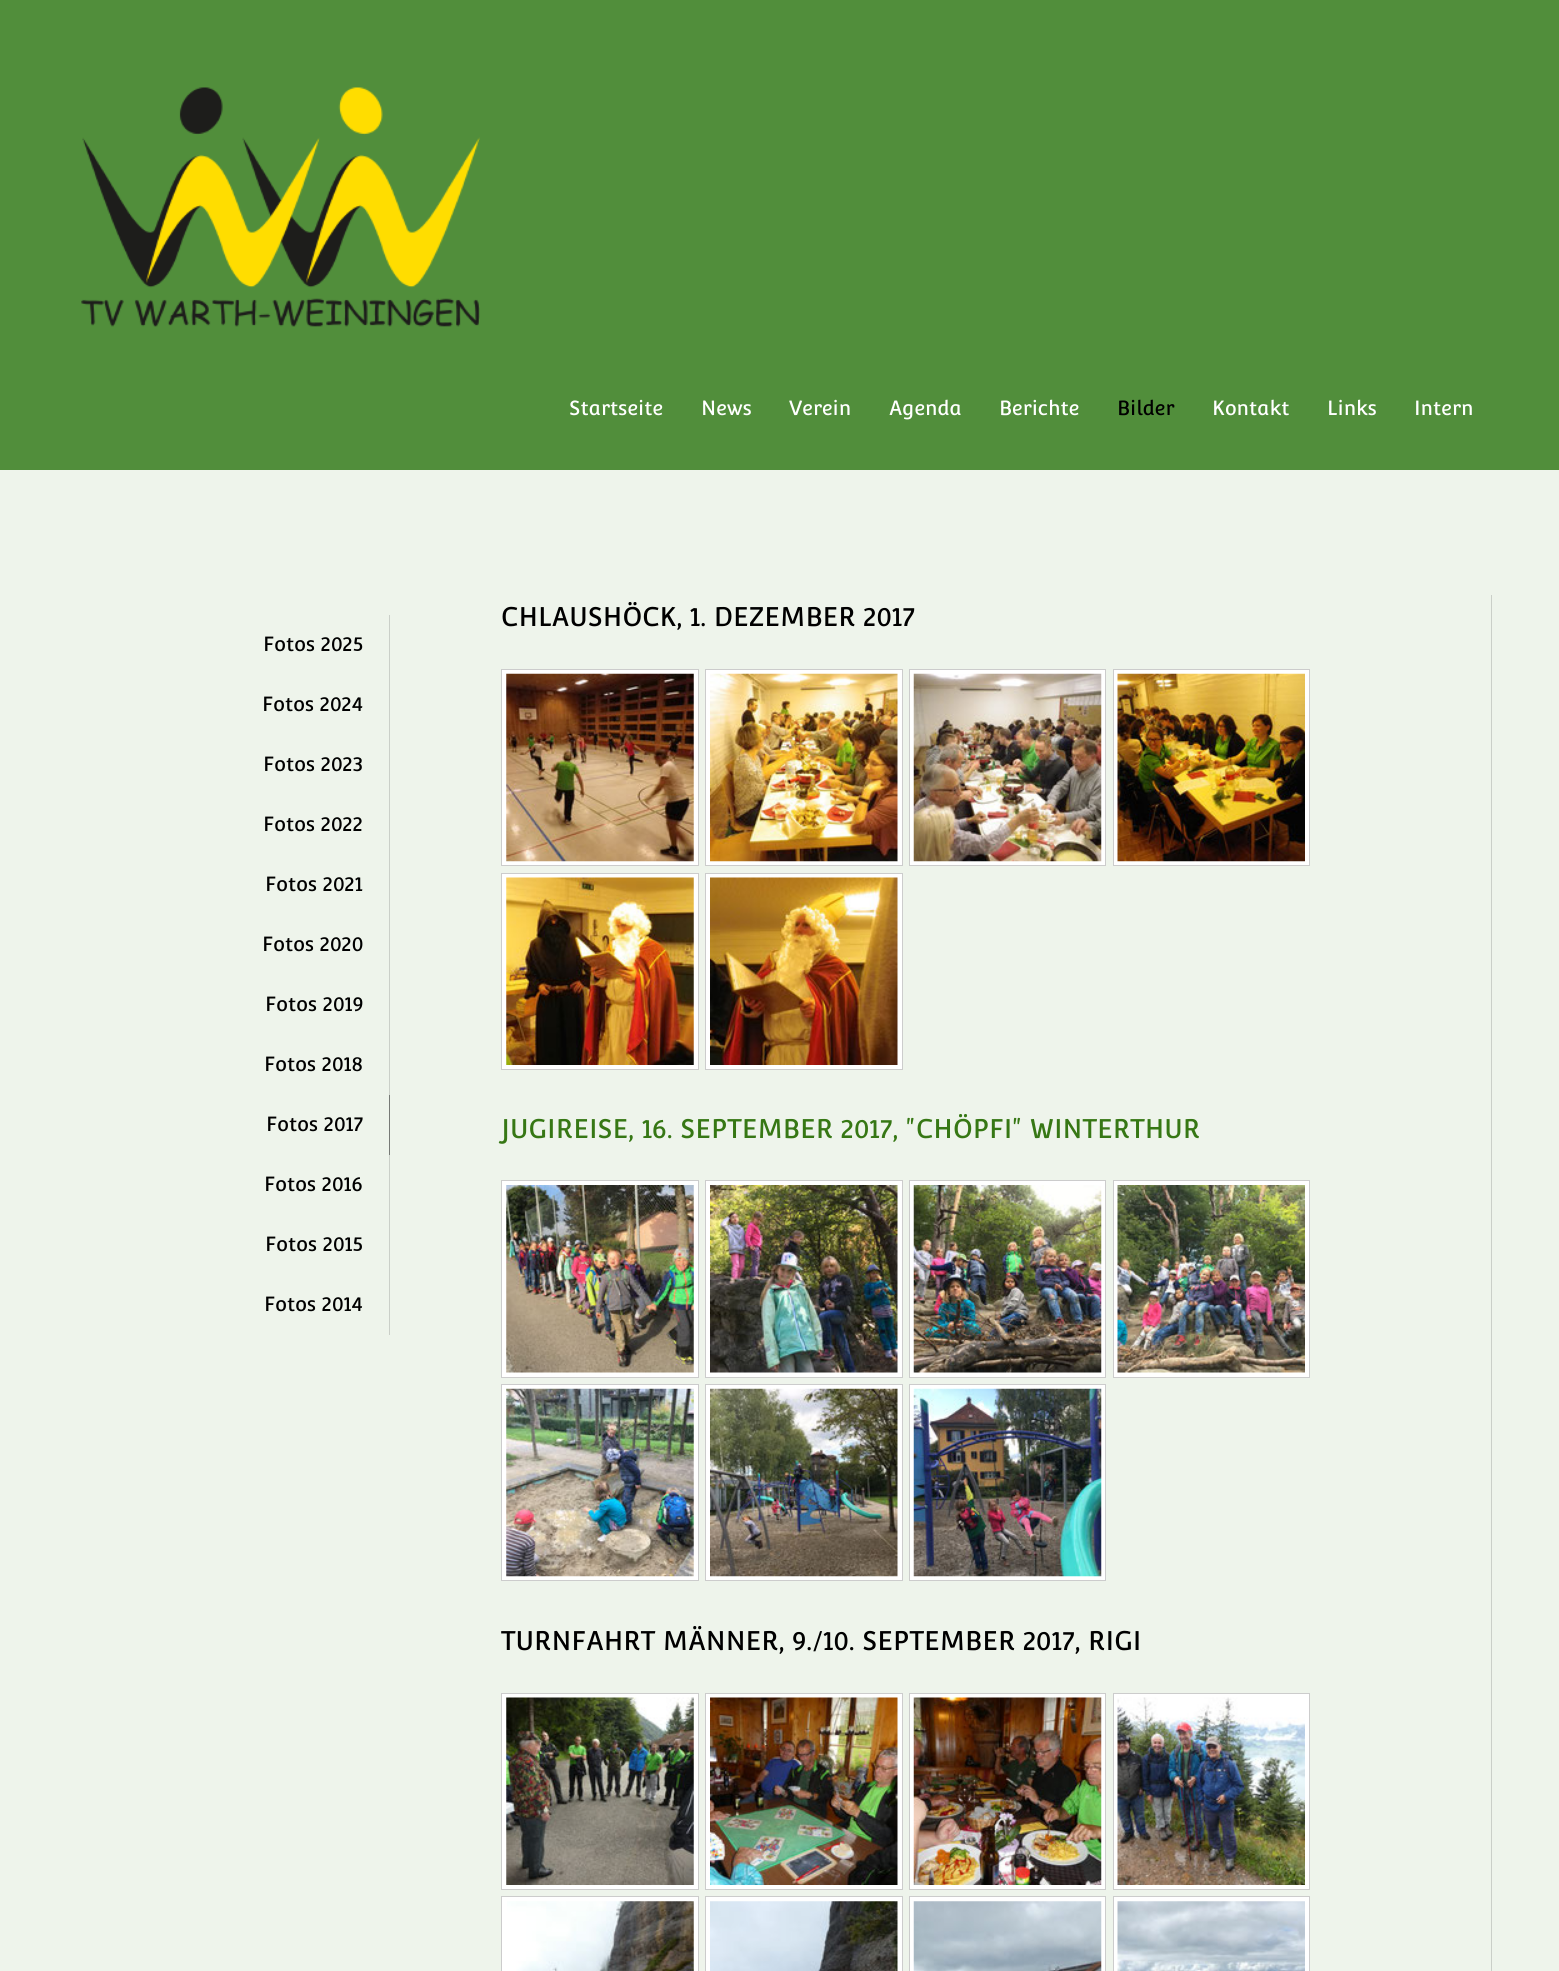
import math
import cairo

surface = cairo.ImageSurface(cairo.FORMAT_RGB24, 1559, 1971)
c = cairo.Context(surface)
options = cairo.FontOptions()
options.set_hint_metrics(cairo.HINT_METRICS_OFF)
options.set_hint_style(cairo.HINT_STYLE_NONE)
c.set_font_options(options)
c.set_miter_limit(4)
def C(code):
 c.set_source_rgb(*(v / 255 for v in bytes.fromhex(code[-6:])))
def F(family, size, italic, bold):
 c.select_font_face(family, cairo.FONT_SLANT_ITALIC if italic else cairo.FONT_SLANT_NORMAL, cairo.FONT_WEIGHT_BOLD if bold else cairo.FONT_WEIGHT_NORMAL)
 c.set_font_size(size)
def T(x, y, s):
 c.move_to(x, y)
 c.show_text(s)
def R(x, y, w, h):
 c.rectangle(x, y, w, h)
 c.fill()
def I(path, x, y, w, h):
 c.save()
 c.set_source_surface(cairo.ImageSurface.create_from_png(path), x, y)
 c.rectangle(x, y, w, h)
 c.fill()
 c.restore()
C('518e3b')
c.paint()
I('1.png',81,87,399,240)
F('Convergence',20,0,0)
C('ffffff')
T(569,415,'Startseite')
T(701,415,'News')
T(789,415,'Verein')
T(889,415,'Agenda')
T(999,415,'Berichte')
C('000000')
T(1117,415,'Bilder')
C('ffffff')
T(1212,415,'Kontakt')
T(1327,415,'Links')
T(1414,415,'Intern')
C('eef4eb')
R(0,470,1559,1501)
C('cacfc8')
R(389,615,1,480)
C('000000')
T(263,651,'Fotos 2025')
T(262,711,'Fotos 2024')
T(263,771,'Fotos 2023')
T(263,831,'Fotos 2022')
T(265,891,'Fotos 2021')
T(262,951,'Fotos 2020')
T(265,1011,'Fotos 2019')
T(264,1071,'Fotos 2018')
C('777a76')
R(389,1095,1,60)
C('000000')
T(266,1131,'Fotos 2017')
C('cacfc8')
R(389,1155,1,180)
C('000000')
T(264,1191,'Fotos 2016')
T(265,1251,'Fotos 2015')
T(264,1311,'Fotos 2014')
C('cacfc8')
R(1491,595,1,1376)
F('Convergence',26.25,0,0)
C('000000')
T(501,626,'CHLAUSHÖCK, 1. DEZEMBER 2017')
C('ffffff')
c.rectangle(501.5,669.5,197,196)
c.fill_preserve()
C('cccccc')
c.set_line_width(1)
c.stroke()
I('2.png',506,673,188,189)
C('ffffff')
c.rectangle(705.5,669.5,197,196)
c.fill_preserve()
C('cccccc')
c.stroke()
I('3.png',710,673,188,189)
C('ffffff')
c.rectangle(909.5,669.5,196,196)
c.fill_preserve()
C('cccccc')
c.stroke()
I('4.png',913,673,189,189)
C('ffffff')
c.rectangle(1113.5,669.5,196,196)
c.fill_preserve()
C('cccccc')
c.stroke()
I('5.png',1117,673,188,189)
C('ffffff')
c.rectangle(501.5,873.5,197,196)
c.fill_preserve()
C('cccccc')
c.stroke()
I('6.png',506,877,188,188)
C('ffffff')
c.rectangle(705.5,873.5,197,196)
c.fill_preserve()
C('cccccc')
c.stroke()
I('7.png',710,877,188,188)
C('367714')
T(501,1138,'JUGIREISE, 16. SEPTEMBER 2017, "CHÖPFI" WINTERTHUR')
C('ffffff')
c.rectangle(501.5,1180.5,197,197)
c.fill_preserve()
C('cccccc')
c.stroke()
I('8.png',506,1185,188,188)
C('ffffff')
c.rectangle(705.5,1180.5,197,197)
c.fill_preserve()
C('cccccc')
c.stroke()
I('9.png',710,1185,188,188)
C('ffffff')
c.rectangle(909.5,1180.5,196,197)
c.fill_preserve()
C('cccccc')
c.stroke()
I('10.png',913,1185,189,188)
C('ffffff')
c.rectangle(1113.5,1180.5,196,197)
c.fill_preserve()
C('cccccc')
c.stroke()
I('11.png',1117,1185,188,188)
C('ffffff')
c.rectangle(501.5,1384.5,197,196)
c.fill_preserve()
C('cccccc')
c.stroke()
I('12.png',506,1388,188,189)
C('ffffff')
c.rectangle(705.5,1384.5,197,196)
c.fill_preserve()
C('cccccc')
c.stroke()
I('13.png',710,1388,188,189)
C('ffffff')
c.rectangle(909.5,1384.5,196,196)
c.fill_preserve()
C('cccccc')
c.stroke()
I('14.png',913,1388,189,189)
C('000000')
T(501,1650,'TURNFAHRT MÄNNER, 9./10. SEPTEMBER 2017, RIGI')
C('ffffff')
c.rectangle(501.5,1693.5,197,196)
c.fill_preserve()
C('cccccc')
c.stroke()
I('15.png',506,1697,188,188)
C('ffffff')
c.rectangle(705.5,1693.5,197,196)
c.fill_preserve()
C('cccccc')
c.stroke()
I('16.png',710,1697,188,188)
C('ffffff')
c.rectangle(909.5,1693.5,196,196)
c.fill_preserve()
C('cccccc')
c.stroke()
I('17.png',913,1697,189,188)
C('ffffff')
c.rectangle(1113.5,1693.5,196,196)
c.fill_preserve()
C('cccccc')
c.stroke()
I('18.png',1117,1697,188,188)
C('ffffff')
c.rectangle(501.5,1896.5,197,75)
c.fill_preserve()
C('cccccc')
c.stroke()
I('19.png',507,1901,187,70)
C('ffffff')
c.rectangle(705.5,1896.5,197,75)
c.fill_preserve()
C('cccccc')
c.stroke()
I('20.png',710,1901,188,70)
C('ffffff')
c.rectangle(909.5,1896.5,196,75)
c.fill_preserve()
C('cccccc')
c.stroke()
I('21.png',913,1901,189,70)
C('ffffff')
c.rectangle(1113.5,1896.5,196,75)
c.fill_preserve()
C('cccccc')
c.stroke()
I('22.png',1117,1901,188,70)
surface.write_to_png('o.png')
